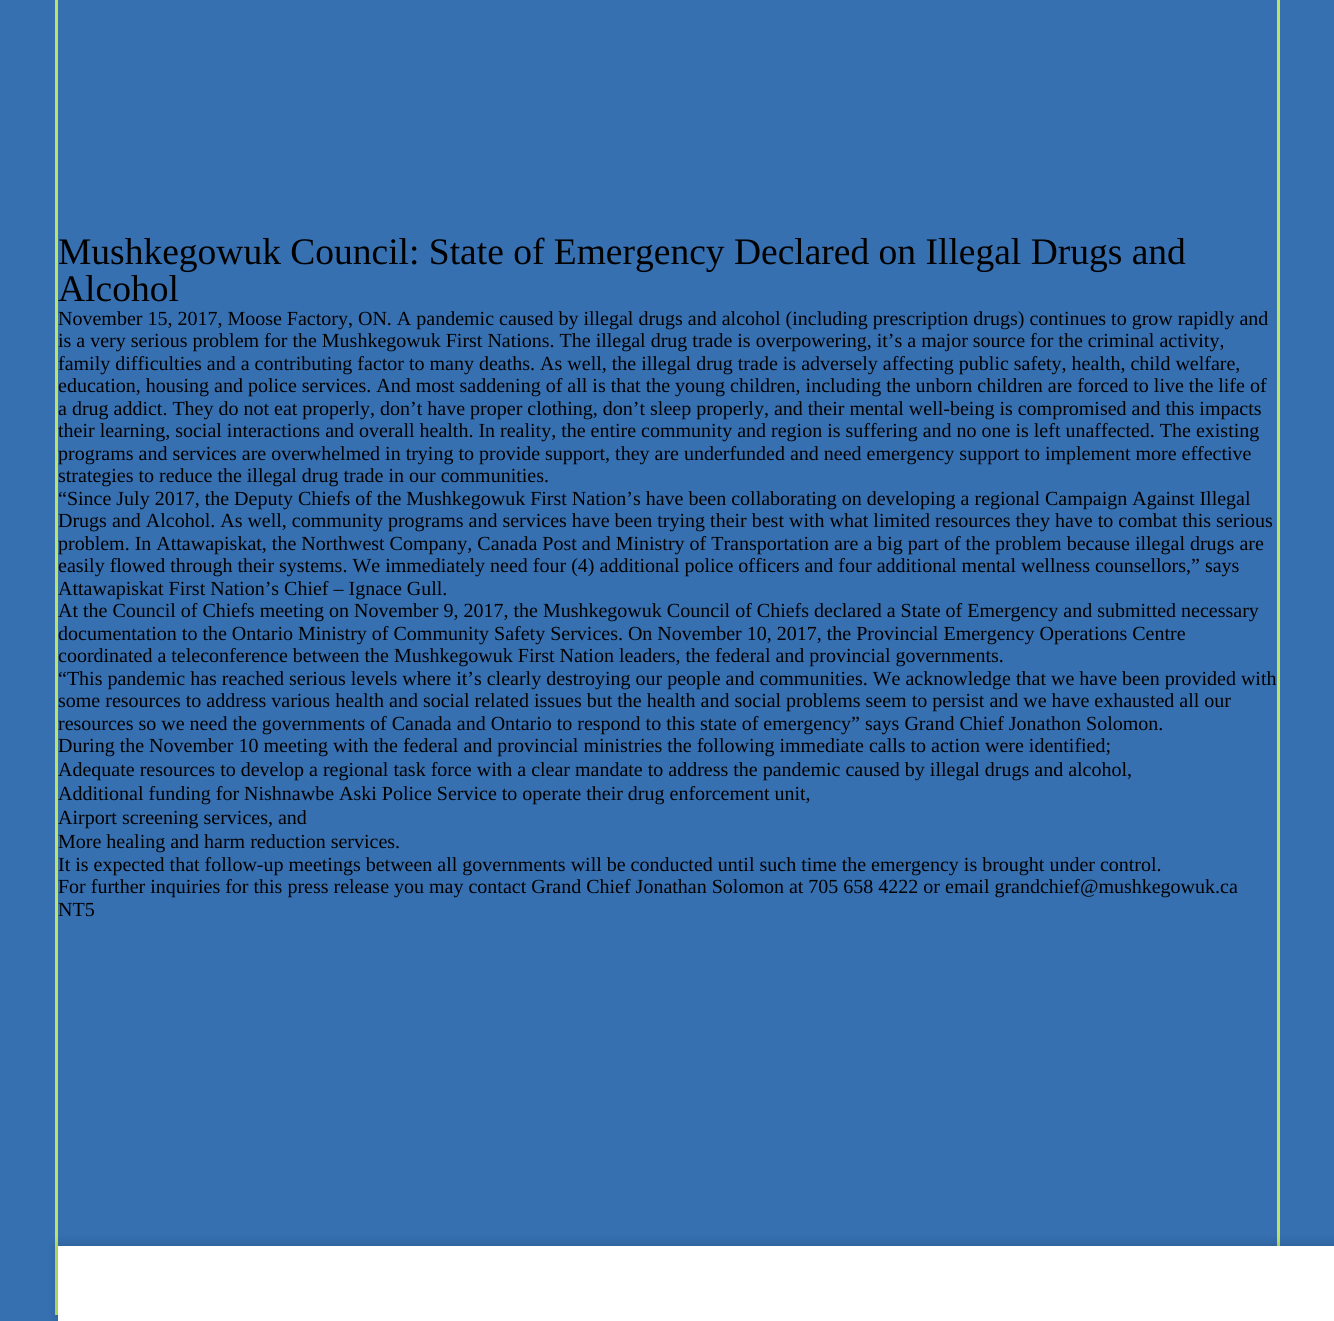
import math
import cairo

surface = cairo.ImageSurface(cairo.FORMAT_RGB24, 1334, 1321)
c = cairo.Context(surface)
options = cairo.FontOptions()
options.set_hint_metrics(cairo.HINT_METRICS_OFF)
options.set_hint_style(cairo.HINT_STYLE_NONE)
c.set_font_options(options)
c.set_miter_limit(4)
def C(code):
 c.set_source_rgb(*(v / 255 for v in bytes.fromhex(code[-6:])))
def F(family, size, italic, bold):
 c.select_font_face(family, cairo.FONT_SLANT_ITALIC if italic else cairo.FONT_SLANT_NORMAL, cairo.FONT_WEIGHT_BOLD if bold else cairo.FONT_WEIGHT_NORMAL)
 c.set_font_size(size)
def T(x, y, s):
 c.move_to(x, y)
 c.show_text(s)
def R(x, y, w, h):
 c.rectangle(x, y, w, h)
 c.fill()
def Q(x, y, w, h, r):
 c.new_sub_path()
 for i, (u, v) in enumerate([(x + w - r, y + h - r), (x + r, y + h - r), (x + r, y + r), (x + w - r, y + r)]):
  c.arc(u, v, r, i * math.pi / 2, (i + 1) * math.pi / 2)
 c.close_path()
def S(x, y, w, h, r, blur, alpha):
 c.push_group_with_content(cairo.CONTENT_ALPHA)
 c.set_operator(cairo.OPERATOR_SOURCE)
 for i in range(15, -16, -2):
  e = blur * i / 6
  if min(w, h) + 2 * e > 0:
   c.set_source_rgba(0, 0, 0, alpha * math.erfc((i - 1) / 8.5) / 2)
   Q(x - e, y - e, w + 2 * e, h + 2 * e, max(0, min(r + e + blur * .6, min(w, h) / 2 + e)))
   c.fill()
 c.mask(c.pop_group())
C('3670b1')
c.paint()
c.rectangle(56.5,-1.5,1222,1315)
C('bbe465')
c.set_line_width(3)
c.stroke()
F('Liberation Serif',37.5,0,0)
C('000000')
T(58,264,'Mushkegowuk Council: State of Emergency Declared on Illegal Drugs and')
T(58,301,'Alcohol')
F('Liberation Serif',20,0,0)
T(58,325,'November 15, 2017, Moose Factory, ON. A pandemic caused by illegal drugs and alcohol (including prescription drugs) continues to grow rapidly and')
T(58,347,'is a very serious problem for the Mushkegowuk First Nations. The illegal drug trade is overpowering, it’s a major source for the criminal activity,')
T(58,370,'family difficulties and a contributing factor to many deaths. As well, the illegal drug trade is adversely affecting public safety, health, child welfare,')
T(58,392,'education, housing and police services. And most saddening of all is that the young children, including the unborn children are forced to live the life of')
T(58,415,'a drug addict. They do not eat properly, don’t have proper clothing, don’t sleep properly, and their mental well-being is compromised and this impacts')
T(58,437,'their learning, social interactions and overall health. In reality, the entire community and region is suffering and no one is left unaffected. The existing')
T(58,460,'programs and services are overwhelmed in trying to provide support, they are underfunded and need emergency support to implement more effective')
T(58,482,'strategies to reduce the illegal drug trade in our communities.')
T(58,505,'“Since July 2017, the Deputy Chiefs of the Mushkegowuk First Nation’s have been collaborating on developing a regional Campaign Against Illegal')
T(58,527,'Drugs and Alcohol. As well, community programs and services have been trying their best with what limited resources they have to combat this serious')
T(58,550,'problem. In Attawapiskat, the Northwest Company, Canada Post and Ministry of Transportation are a big part of the problem because illegal drugs are')
T(58,572,'easily flowed through their systems. We immediately need four (4) additional police officers and four additional mental wellness counsellors,” says')
T(58,595,'Attawapiskat First Nation’s Chief – Ignace Gull.')
T(58,617,'At the Council of Chiefs meeting on November 9, 2017, the Mushkegowuk Council of Chiefs declared a State of Emergency and submitted necessary')
T(58,640,'documentation to the Ontario Ministry of Community Safety Services. On November 10, 2017, the Provincial Emergency Operations Centre')
T(58,662,'coordinated a teleconference between the Mushkegowuk First Nation leaders, the federal and provincial governments.')
T(58,685,'“This pandemic has reached serious levels where it’s clearly destroying our people and communities. We acknowledge that we have been provided with')
T(58,707,'some resources to address various health and social related issues but the health and social problems seem to persist and we have exhausted all our')
T(58,730,'resources so we need the governments of Canada and Ontario to respond to this state of emergency” says Grand Chief Jonathon Solomon.')
T(58,752,'During the November 10 meeting with the federal and provincial ministries the following immediate calls to action were identified;')
T(58,776,'Adequate resources to develop a regional task force with a clear mandate to address the pandemic caused by illegal drugs and alcohol,')
T(58,800,'Additional funding for Nishnawbe Aski Police Service to operate their drug enforcement unit,')
T(58,824,'Airport screening services, and')
T(58,848,'More healing and harm reduction services.')
T(58,871,'It is expected that follow-up meetings between all governments will be conducted until such time the emergency is brought under control.')
T(58,893,'For further inquiries for this press release you may contact Grand Chief Jonathan Solomon at 705 658 4222 or email grandchief@mushkegowuk.ca')
T(58,916,'NT5')
C('000000')
S(58,1245,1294,75,0,6,.2)
C('ffffff')
R(58,1246,1276,75)
surface.write_to_png('o.png')
